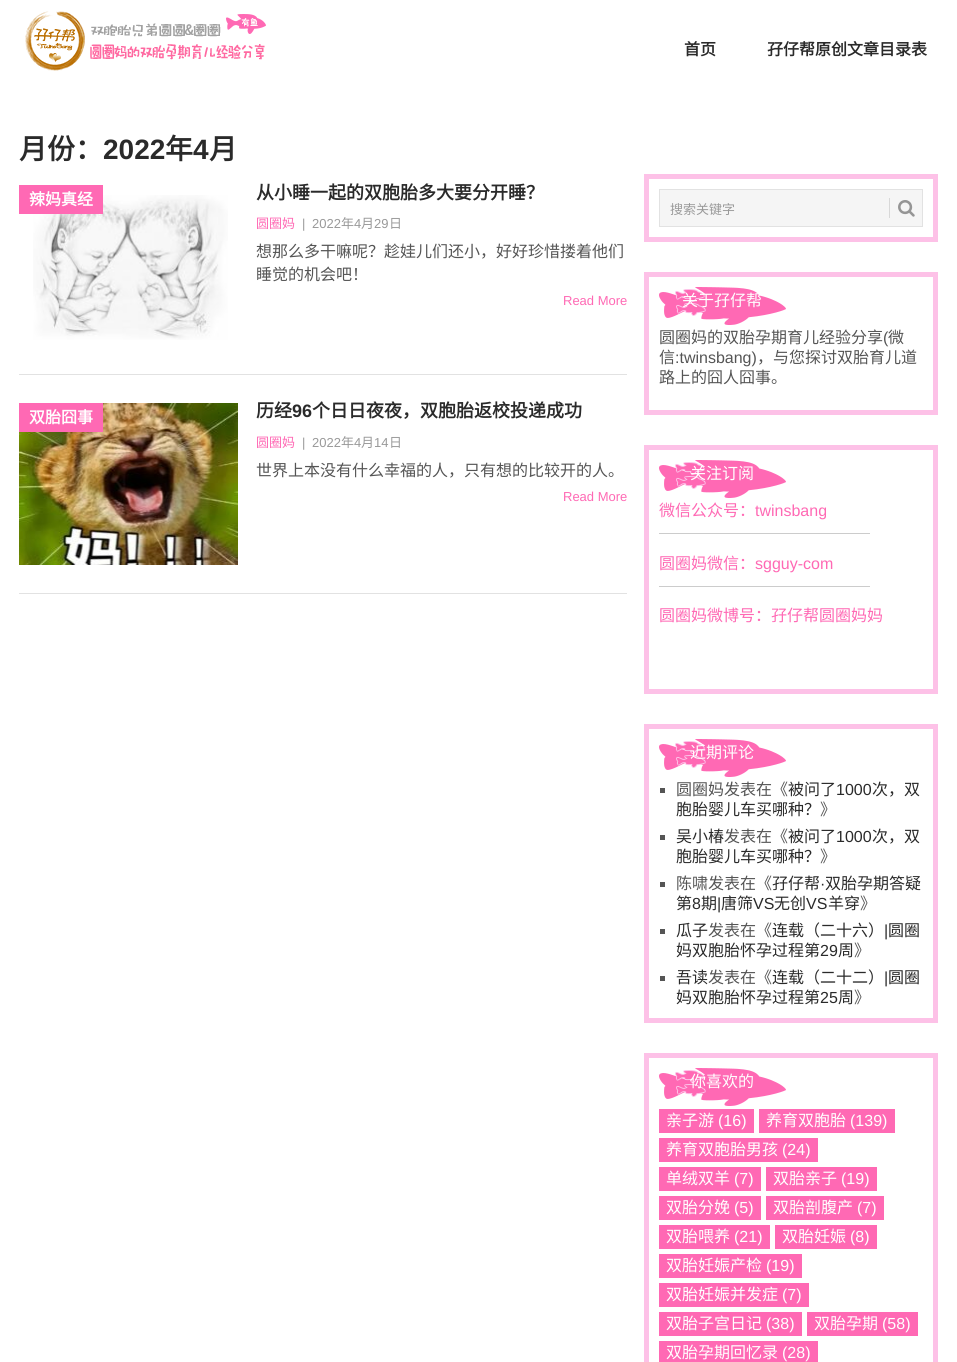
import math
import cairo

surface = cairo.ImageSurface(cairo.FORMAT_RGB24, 957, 1362)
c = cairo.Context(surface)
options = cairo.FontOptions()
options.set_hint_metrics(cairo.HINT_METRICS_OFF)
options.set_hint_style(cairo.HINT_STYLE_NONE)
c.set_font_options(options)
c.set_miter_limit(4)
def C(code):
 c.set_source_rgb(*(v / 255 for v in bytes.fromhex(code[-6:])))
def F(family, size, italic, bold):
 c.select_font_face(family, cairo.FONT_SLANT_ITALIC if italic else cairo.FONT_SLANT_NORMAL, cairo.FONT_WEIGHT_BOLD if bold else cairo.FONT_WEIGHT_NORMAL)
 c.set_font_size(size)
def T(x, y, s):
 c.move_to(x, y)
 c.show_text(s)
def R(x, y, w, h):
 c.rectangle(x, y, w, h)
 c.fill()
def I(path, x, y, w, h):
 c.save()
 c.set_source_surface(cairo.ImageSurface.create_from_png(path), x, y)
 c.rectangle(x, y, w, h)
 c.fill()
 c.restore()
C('ffffff')
c.paint()
I('1.png',25,11,241,60)
F('Noto Sans CJK SC',16,0,1)
C('2a2a2a')
T(684,55,'首页')
T(767,55,'孖仔帮原创文章目录表')
F('Noto Sans CJK SC',28,0,1)
T(19,159,'月份：')
F('Liberation Sans',28,0,1)
T(103,159,'2022')
F('Noto Sans CJK SC',28,0,1)
T(165,159,'年')
F('Liberation Sans',28,0,1)
T(193,159,'4')
F('Noto Sans CJK SC',28,0,1)
T(209,159,'月')
C('e2e2e2')
R(19,374,608,1)
I('2.png',33,195,195,145)
C('ff69b4')
R(19,185,84,29)
F('Noto Sans CJK SC',16,0,1)
C('ffffff')
T(29,205,'辣妈真经')
F('Noto Sans CJK SC',18,0,1)
C('2a2a2a')
T(256,199,'从小睡一起的双胞胎多大要分开睡？')
F('Noto Sans CJK SC',13,0,0)
C('ff69b4')
T(256,228,'圆圈妈')
F('Liberation Sans',13,0,0)
C('999999')
T(302,228,'|')
T(312,228,'2022')
F('Noto Sans CJK SC',13,0,0)
T(341,228,'年')
F('Liberation Sans',13,0,0)
T(354,228,'4')
F('Noto Sans CJK SC',13,0,0)
T(361,228,'月')
F('Liberation Sans',13,0,0)
T(374,228,'29')
F('Noto Sans CJK SC',13,0,0)
T(389,228,'日')
F('Noto Sans CJK SC',16,0,0)
C('555555')
T(256,257,'想那么多干嘛呢？趁娃儿们还小，好好珍惜搂着他们')
T(256,280,'睡觉的机会吧！')
F('Liberation Sans',13,0,0)
C('ff69b4')
T(563,305,'Read More')
C('e2e2e2')
R(19,593,608,1)
I('3.png',19,403,219,162)
C('ff69b4')
R(19,403,84,29)
F('Noto Sans CJK SC',16,0,1)
C('ffffff')
T(29,423,'双胎囧事')
F('Noto Sans CJK SC',18,0,1)
C('2a2a2a')
T(256,417,'历经')
F('Liberation Sans',18,0,1)
T(292,417,'96')
F('Noto Sans CJK SC',18,0,1)
T(312,417,'个日日夜夜，双胞胎返校投递成功')
F('Noto Sans CJK SC',13,0,0)
C('ff69b4')
T(256,447,'圆圈妈')
F('Liberation Sans',13,0,0)
C('999999')
T(302,447,'|')
T(312,447,'2022')
F('Noto Sans CJK SC',13,0,0)
T(341,447,'年')
F('Liberation Sans',13,0,0)
T(354,447,'4')
F('Noto Sans CJK SC',13,0,0)
T(361,447,'月')
F('Liberation Sans',13,0,0)
T(374,447,'14')
F('Noto Sans CJK SC',13,0,0)
T(389,447,'日')
F('Noto Sans CJK SC',16,0,0)
C('555555')
T(256,476,'世界上本没有什么幸福的人，只有想的比较开的人。')
F('Liberation Sans',13,0,0)
C('ff69b4')
T(563,501,'Read More')
c.rectangle(646.5,176.5,289,63)
C('fdc1e7')
c.set_line_width(5)
c.stroke()
C('f5f5f5')
c.rectangle(659.5,189.5,263,37)
c.fill_preserve()
C('e2e2e2')
c.set_line_width(1)
c.stroke()
F('Noto Sans CJK SC',13,0,0)
C('999999')
T(670,214,'搜索关键字')
C('d8d8d8')
R(889,198,1,20)
I('4.png',898,200,17,17)
c.rectangle(646.5,274.5,289,138)
C('fdc1e7')
c.set_line_width(5)
c.stroke()
I('5.png',659,287,127,38)
F('Noto Sans CJK SC',16,0,0)
C('ffffff')
T(682,306,'关于孖仔帮')
C('555555')
T(659,343,'圆圈妈的双胎孕期育儿经验分享')
F('Liberation Sans',16,0,0)
T(883,343,'(')
F('Noto Sans CJK SC',16,0,0)
T(888,343,'微')
T(659,363,'信')
F('Liberation Sans',16,0,0)
T(675,363,':twinsbang)')
F('Noto Sans CJK SC',16,0,0)
T(757,363,'，与您探讨双胎育儿道')
T(659,383,'路上的囧人囧事。')
c.rectangle(646.5,447.5,289,244)
C('fdc1e7')
c.stroke()
I('5.png',659,460,127,38)
C('ffffff')
T(690,479,'关注订阅')
C('ff69b4')
T(659,516,'微信公众号：')
F('Liberation Sans',16,0,0)
T(755,516,'twinsbang')
C('cccccc')
R(659,533,211,1)
F('Noto Sans CJK SC',16,0,0)
C('ff69b4')
T(659,569,'圆圈妈微信：')
F('Liberation Sans',16,0,0)
T(755,569,'sgguy-com')
C('cccccc')
R(659,586,211,1)
F('Noto Sans CJK SC',16,0,0)
C('ff69b4')
T(659,621,'圆圈妈微博号：孖仔帮圆圈妈妈')
c.rectangle(646.5,726.5,289,294)
C('fdc1e7')
c.stroke()
I('5.png',659,739,127,38)
C('ffffff')
T(690,758,'近期评论')
C('555555')
R(660,788,5,5)
T(676,795,'圆圈妈发表在《')
C('2a2a2a')
T(788,795,'被问了')
F('Liberation Sans',16,0,0)
T(836,795,'1000')
F('Noto Sans CJK SC',16,0,0)
T(872,795,'次，双')
T(676,815,'胞胎婴儿车买哪种？')
C('555555')
T(820,815,'》')
R(660,835,5,5)
C('2a2a2a')
T(676,842,'吴小椿')
C('555555')
T(724,842,'发表在《')
C('2a2a2a')
T(788,842,'被问了')
F('Liberation Sans',16,0,0)
T(836,842,'1000')
F('Noto Sans CJK SC',16,0,0)
T(872,842,'次，双')
T(676,862,'胞胎婴儿车买哪种？')
C('555555')
T(820,862,'》')
R(660,882,5,5)
T(676,889,'陈啸发表在《')
C('2a2a2a')
T(772,889,'孖仔帮')
F('Liberation Sans',16,0,0)
T(820,889,'·')
F('Noto Sans CJK SC',16,0,0)
T(825,889,'双胎孕期答疑')
T(676,909,'第')
F('Liberation Sans',16,0,0)
T(692,909,'8')
F('Noto Sans CJK SC',16,0,0)
T(701,909,'期')
F('Liberation Sans',16,0,0)
T(717,909,'|')
F('Noto Sans CJK SC',16,0,0)
T(721,909,'唐筛')
F('Liberation Sans',16,0,0)
T(753,909,'VS')
F('Noto Sans CJK SC',16,0,0)
T(774,909,'无创')
F('Liberation Sans',16,0,0)
T(806,909,'VS')
F('Noto Sans CJK SC',16,0,0)
T(828,909,'羊穿')
C('555555')
T(860,909,'》')
R(660,929,5,5)
C('2a2a2a')
T(676,936,'瓜子')
C('555555')
T(708,936,'发表在《')
C('2a2a2a')
T(772,936,'连载（二十六）')
F('Liberation Sans',16,0,0)
T(884,936,'|')
F('Noto Sans CJK SC',16,0,0)
T(888,936,'圆圈')
T(676,956,'妈双胞胎怀孕过程第')
F('Liberation Sans',16,0,0)
T(820,956,'29')
F('Noto Sans CJK SC',16,0,0)
T(838,956,'周')
C('555555')
T(854,956,'》')
R(660,976,5,5)
C('2a2a2a')
T(676,983,'吾读')
C('555555')
T(708,983,'发表在《')
C('2a2a2a')
T(772,983,'连载（二十二）')
F('Liberation Sans',16,0,0)
T(884,983,'|')
F('Noto Sans CJK SC',16,0,0)
T(888,983,'圆圈')
T(676,1003,'妈双胞胎怀孕过程第')
F('Liberation Sans',16,0,0)
T(820,1003,'25')
F('Noto Sans CJK SC',16,0,0)
T(838,1003,'周')
C('555555')
T(854,1003,'》')
c.rectangle(646.5,1055.5,289,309)
C('fdc1e7')
c.stroke()
I('5.png',659,1068,127,38)
C('ffffff')
T(690,1087,'你喜欢的')
C('ff69b4')
R(659,1109,95,24)
C('ffffff')
T(666,1126,'亲子游')
F('Liberation Sans',16,0,0)
T(718,1126,'(16)')
C('ff69b4')
R(759,1109,136,24)
F('Noto Sans CJK SC',16,0,0)
C('ffffff')
T(766,1126,'养育双胞胎')
F('Liberation Sans',16,0,0)
T(850,1126,'(139)')
C('ff69b4')
R(659,1138,159,24)
F('Noto Sans CJK SC',16,0,0)
C('ffffff')
T(666,1155,'养育双胞胎男孩')
F('Liberation Sans',16,0,0)
T(782,1155,'(24)')
C('ff69b4')
R(659,1167,102,24)
F('Noto Sans CJK SC',16,0,0)
C('ffffff')
T(666,1184,'单绒双羊')
F('Liberation Sans',16,0,0)
T(734,1184,'(7)')
C('ff69b4')
R(766,1167,111,24)
F('Noto Sans CJK SC',16,0,0)
C('ffffff')
T(773,1184,'双胎亲子')
F('Liberation Sans',16,0,0)
T(841,1184,'(19)')
C('ff69b4')
R(659,1196,102,24)
F('Noto Sans CJK SC',16,0,0)
C('ffffff')
T(666,1213,'双胎分娩')
F('Liberation Sans',16,0,0)
T(734,1213,'(5)')
C('ff69b4')
R(766,1196,118,24)
F('Noto Sans CJK SC',16,0,0)
C('ffffff')
T(773,1213,'双胎剖腹产')
F('Liberation Sans',16,0,0)
T(857,1213,'(7)')
C('ff69b4')
R(659,1225,111,24)
F('Noto Sans CJK SC',16,0,0)
C('ffffff')
T(666,1242,'双胎喂养')
F('Liberation Sans',16,0,0)
T(734,1242,'(21)')
C('ff69b4')
R(775,1225,102,24)
F('Noto Sans CJK SC',16,0,0)
C('ffffff')
T(782,1242,'双胎妊娠')
F('Liberation Sans',16,0,0)
T(850,1242,'(8)')
C('ff69b4')
R(659,1254,143,24)
F('Noto Sans CJK SC',16,0,0)
C('ffffff')
T(666,1271,'双胎妊娠产检')
F('Liberation Sans',16,0,0)
T(766,1271,'(19)')
C('ff69b4')
R(659,1283,150,24)
F('Noto Sans CJK SC',16,0,0)
C('ffffff')
T(666,1300,'双胎妊娠并发症')
F('Liberation Sans',16,0,0)
T(782,1300,'(7)')
C('ff69b4')
R(659,1312,143,24)
F('Noto Sans CJK SC',16,0,0)
C('ffffff')
T(666,1329,'双胎子宫日记')
F('Liberation Sans',16,0,0)
T(766,1329,'(38)')
C('ff69b4')
R(807,1312,111,24)
F('Noto Sans CJK SC',16,0,0)
C('ffffff')
T(814,1329,'双胎孕期')
F('Liberation Sans',16,0,0)
T(882,1329,'(58)')
C('ff69b4')
R(659,1341,159,21)
F('Noto Sans CJK SC',16,0,0)
C('ffffff')
T(666,1358,'双胎孕期回忆录')
F('Liberation Sans',16,0,0)
T(782,1358,'(28)')
surface.write_to_png('o.png')
